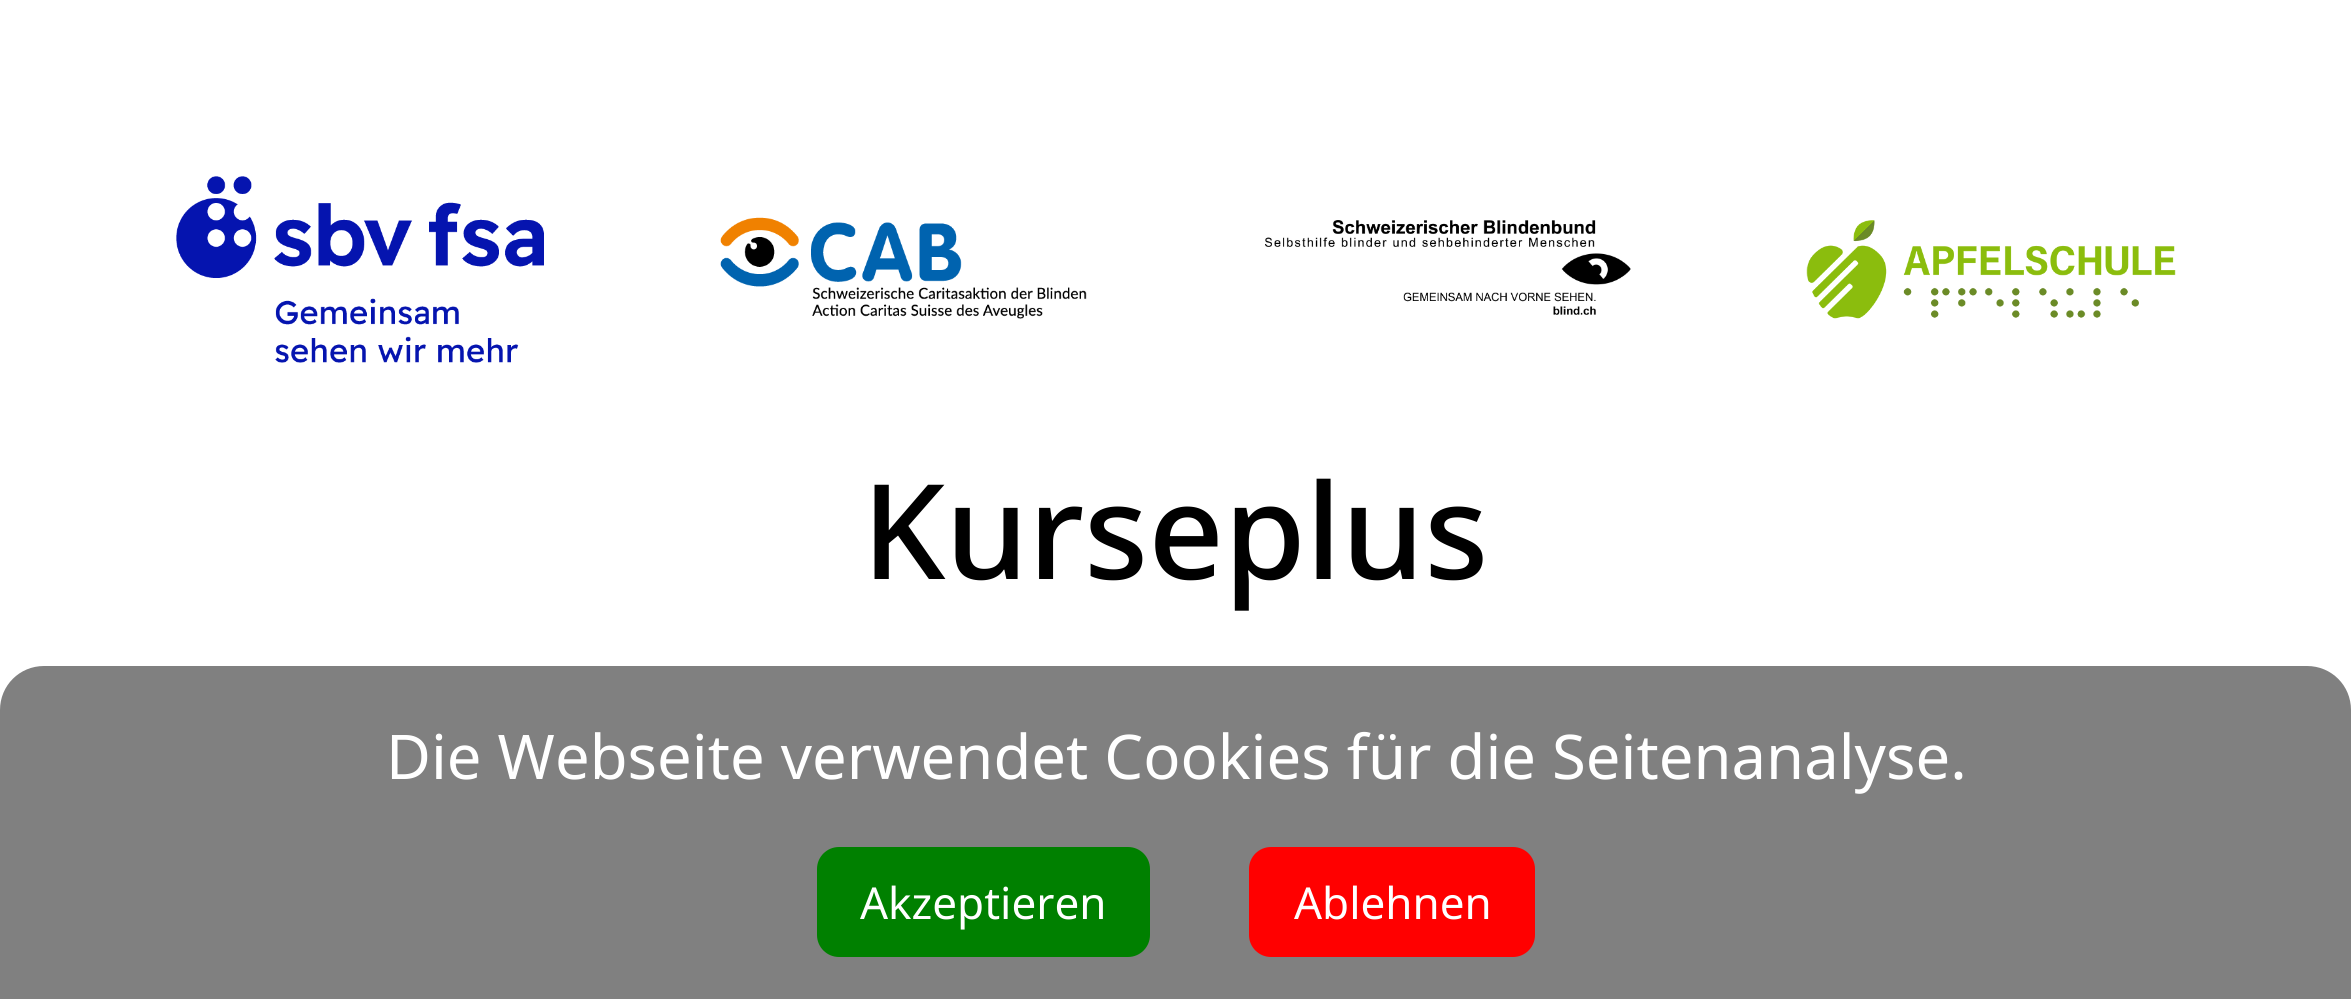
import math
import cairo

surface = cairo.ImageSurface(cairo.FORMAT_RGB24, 2351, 999)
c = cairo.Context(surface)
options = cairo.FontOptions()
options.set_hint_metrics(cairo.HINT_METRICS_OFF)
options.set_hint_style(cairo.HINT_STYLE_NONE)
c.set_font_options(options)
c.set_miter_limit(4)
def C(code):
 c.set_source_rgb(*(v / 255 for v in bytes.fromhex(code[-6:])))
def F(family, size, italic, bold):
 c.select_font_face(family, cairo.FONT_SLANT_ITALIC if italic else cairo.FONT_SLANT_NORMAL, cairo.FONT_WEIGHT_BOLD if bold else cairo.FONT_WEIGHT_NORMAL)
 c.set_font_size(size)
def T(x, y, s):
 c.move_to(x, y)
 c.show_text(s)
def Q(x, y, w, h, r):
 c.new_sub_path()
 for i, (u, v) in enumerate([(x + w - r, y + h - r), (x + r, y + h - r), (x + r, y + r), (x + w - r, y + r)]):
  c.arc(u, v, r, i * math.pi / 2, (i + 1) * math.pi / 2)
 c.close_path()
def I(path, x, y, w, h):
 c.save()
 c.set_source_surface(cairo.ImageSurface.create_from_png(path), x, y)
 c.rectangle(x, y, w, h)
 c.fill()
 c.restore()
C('ffffff')
c.paint()
I('1.png',176,176,368,187)
I('2.png',720,217,367,102)
I('3.png',1265,220,366,95)
I('4.png',1806,220,370,99)
F('Noto Sans Medium',132,0,0)
C('000000')
T(862,579,'Kurseplus')
C('808080')
c.new_path()
c.move_to(44,666)
c.line_to(2307,666)
c.curve_to(2331.5,666,2351,685.5,2351,710)
c.line_to(2351,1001)
c.line_to(0,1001)
c.line_to(0,710)
c.curve_to(0,685.5,19.5,666,44,666)
c.close_path()
c.fill()
F('Noto Sans',61.6,0,0)
C('ffffff')
T(386,779,'Die Webseite verwendet Cookies für die Seitenanalyse.')
C('008000')
Q(817,847,333,110,22)
c.fill()
F('Noto Sans',44,0,0)
C('ffffff')
T(860,919,'Akzeptieren')
C('ff0000')
Q(1249,847,286,110,22)
c.fill()
C('ffffff')
T(1294,919,'Ablehnen')
surface.write_to_png('o.png')
